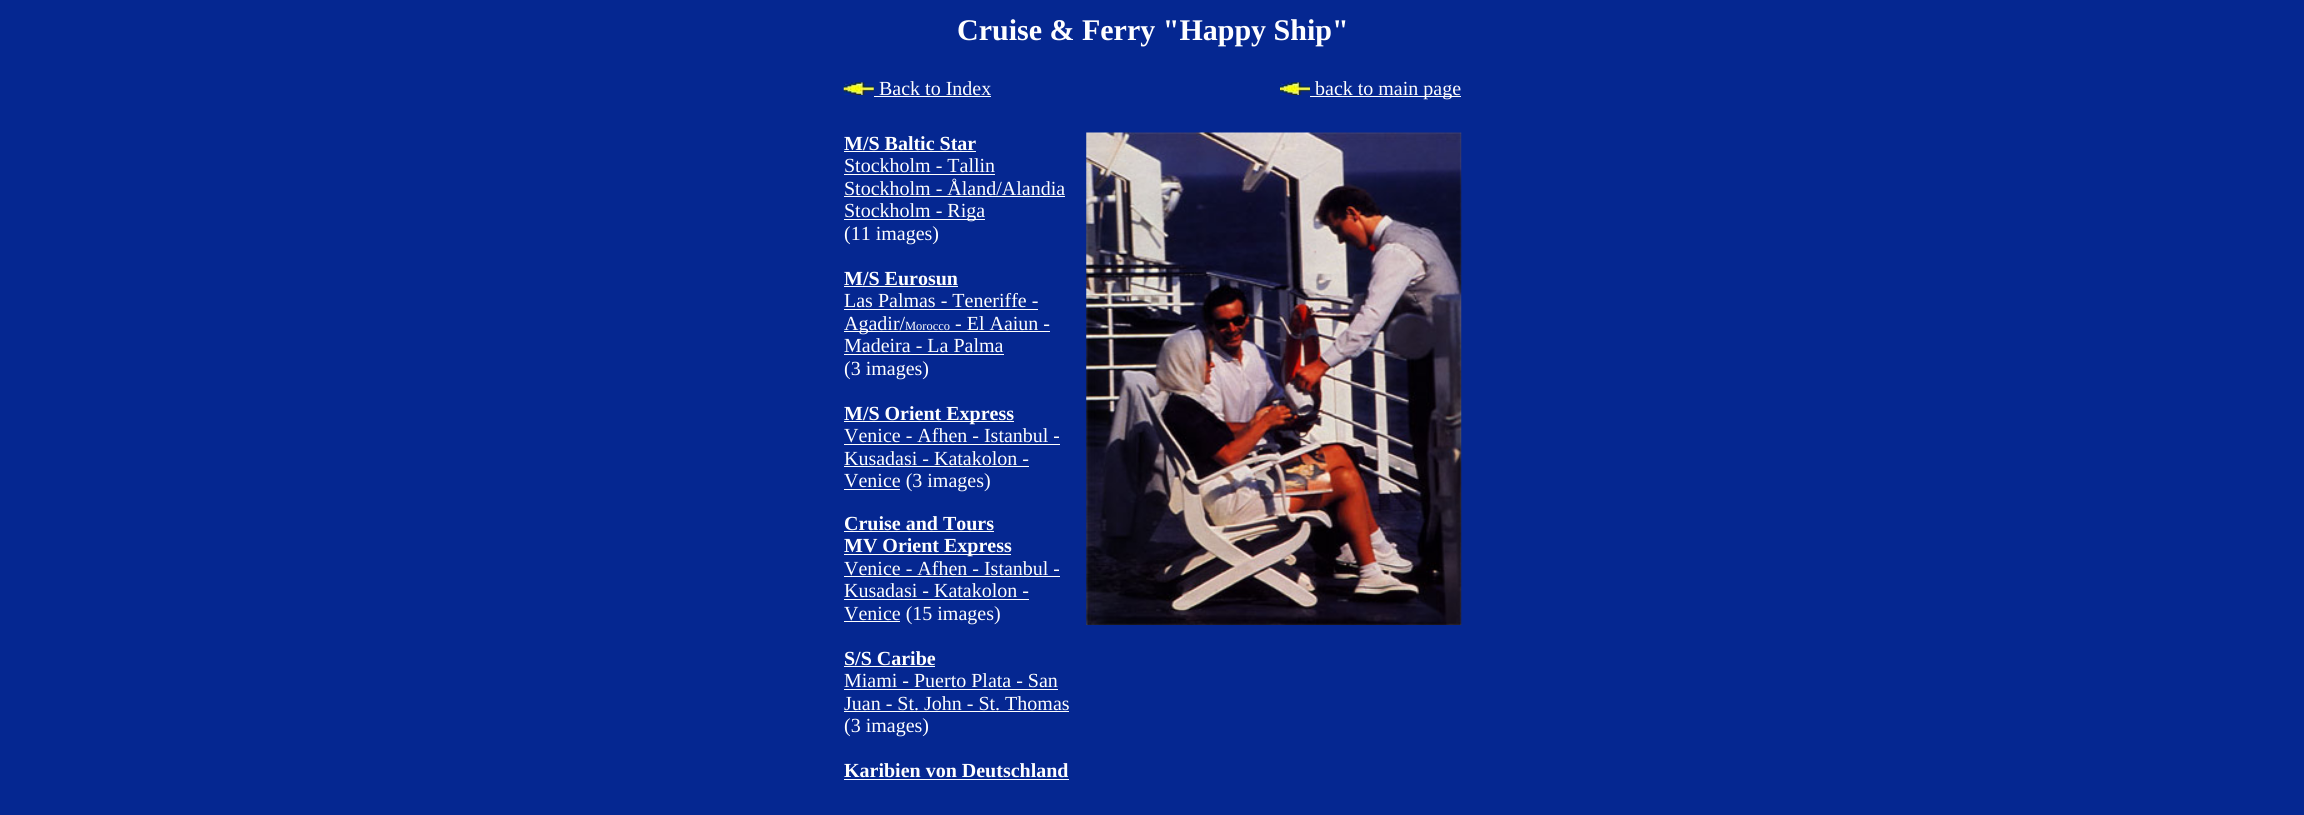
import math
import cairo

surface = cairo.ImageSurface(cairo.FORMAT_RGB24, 2304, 815)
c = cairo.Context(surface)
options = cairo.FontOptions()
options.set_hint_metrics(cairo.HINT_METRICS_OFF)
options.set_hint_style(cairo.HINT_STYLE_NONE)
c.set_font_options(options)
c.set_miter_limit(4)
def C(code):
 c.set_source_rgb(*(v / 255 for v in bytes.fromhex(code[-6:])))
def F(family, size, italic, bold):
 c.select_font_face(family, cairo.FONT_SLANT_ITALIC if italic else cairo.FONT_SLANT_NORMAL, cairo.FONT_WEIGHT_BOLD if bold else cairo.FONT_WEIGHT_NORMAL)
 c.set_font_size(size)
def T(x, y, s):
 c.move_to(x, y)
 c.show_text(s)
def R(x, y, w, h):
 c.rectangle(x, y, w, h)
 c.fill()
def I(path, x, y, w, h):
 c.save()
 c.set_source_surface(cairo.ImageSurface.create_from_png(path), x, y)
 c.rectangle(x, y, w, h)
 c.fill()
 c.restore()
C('052791')
c.paint()
F('Liberation Serif',30,0,1)
C('ffffff')
T(957,40,'Cruise & Ferry "Happy Ship"')
I('1.png',843,82,31,13)
F('Liberation Serif',20,0,0)
T(879,95,'Back to Index')
R(874,96,117,1)
I('2.png',1280,82,30,13)
R(1310,96,151,1)
T(1315,95,'back to main page')
F('Liberation Serif',20,0,1)
T(844,150,'M/S Baltic Star')
R(844,151,132,1)
F('Liberation Serif',20,0,0)
T(844,172,'Stockholm - Tallin')
R(844,174,151,1)
T(844,195,'Stockholm - Åland/Alandia')
R(844,196,221,1)
R(844,219,141,1)
T(844,217,'Stockholm - Riga')
T(844,240,'(11 images)')
F('Liberation Serif',20,0,1)
T(844,285,'M/S Eurosun')
R(844,286,114,1)
F('Liberation Serif',20,0,0)
T(844,307,'Las Palmas - Teneriffe -')
R(844,309,194,1)
R(844,331,206,1)
T(844,330,'Agadir/')
F('Liberation Serif',12.5,0,0)
T(905,330,'Morocco')
F('Liberation Serif',20,0,0)
T(955,330,'- El Aaiun -')
T(844,352,'Madeira - La Palma')
R(844,354,160,1)
T(844,375,'(3 images)')
R(844,421,170,1)
F('Liberation Serif',20,0,1)
T(844,420,'M/S Orient Express')
F('Liberation Serif',20,0,0)
T(844,442,'Venice - Afhen - Istanbul -')
R(844,444,216,1)
T(844,465,'Kusadasi - Katakolon -')
R(844,466,185,1)
R(844,489,56,1)
T(844,487,'Venice (3 images)')
F('Liberation Serif',20,0,1)
T(844,530,'Cruise and Tours')
R(844,531,150,1)
R(844,554,167,1)
T(844,552,'MV Orient Express')
F('Liberation Serif',20,0,0)
T(844,575,'Venice - Afhen - Istanbul -')
R(844,576,216,1)
T(844,597,'Kusadasi - Katakolon -')
R(844,599,185,1)
R(844,621,56,1)
T(844,620,'Venice (15 images)')
F('Liberation Serif',20,0,1)
T(844,665,'S/S Caribe')
R(844,666,91,1)
F('Liberation Serif',20,0,0)
T(844,687,'Miami - Puerto Plata - San')
R(844,689,214,1)
T(844,710,'Juan - St. John - St. Thomas')
R(844,711,225,1)
T(844,732,'(3 images)')
F('Liberation Serif',20,0,1)
T(844,777,'Karibien von Deutschland')
R(844,779,225,1)
I('3.png',1086,132,376,493)
surface.write_to_png('o.png')
